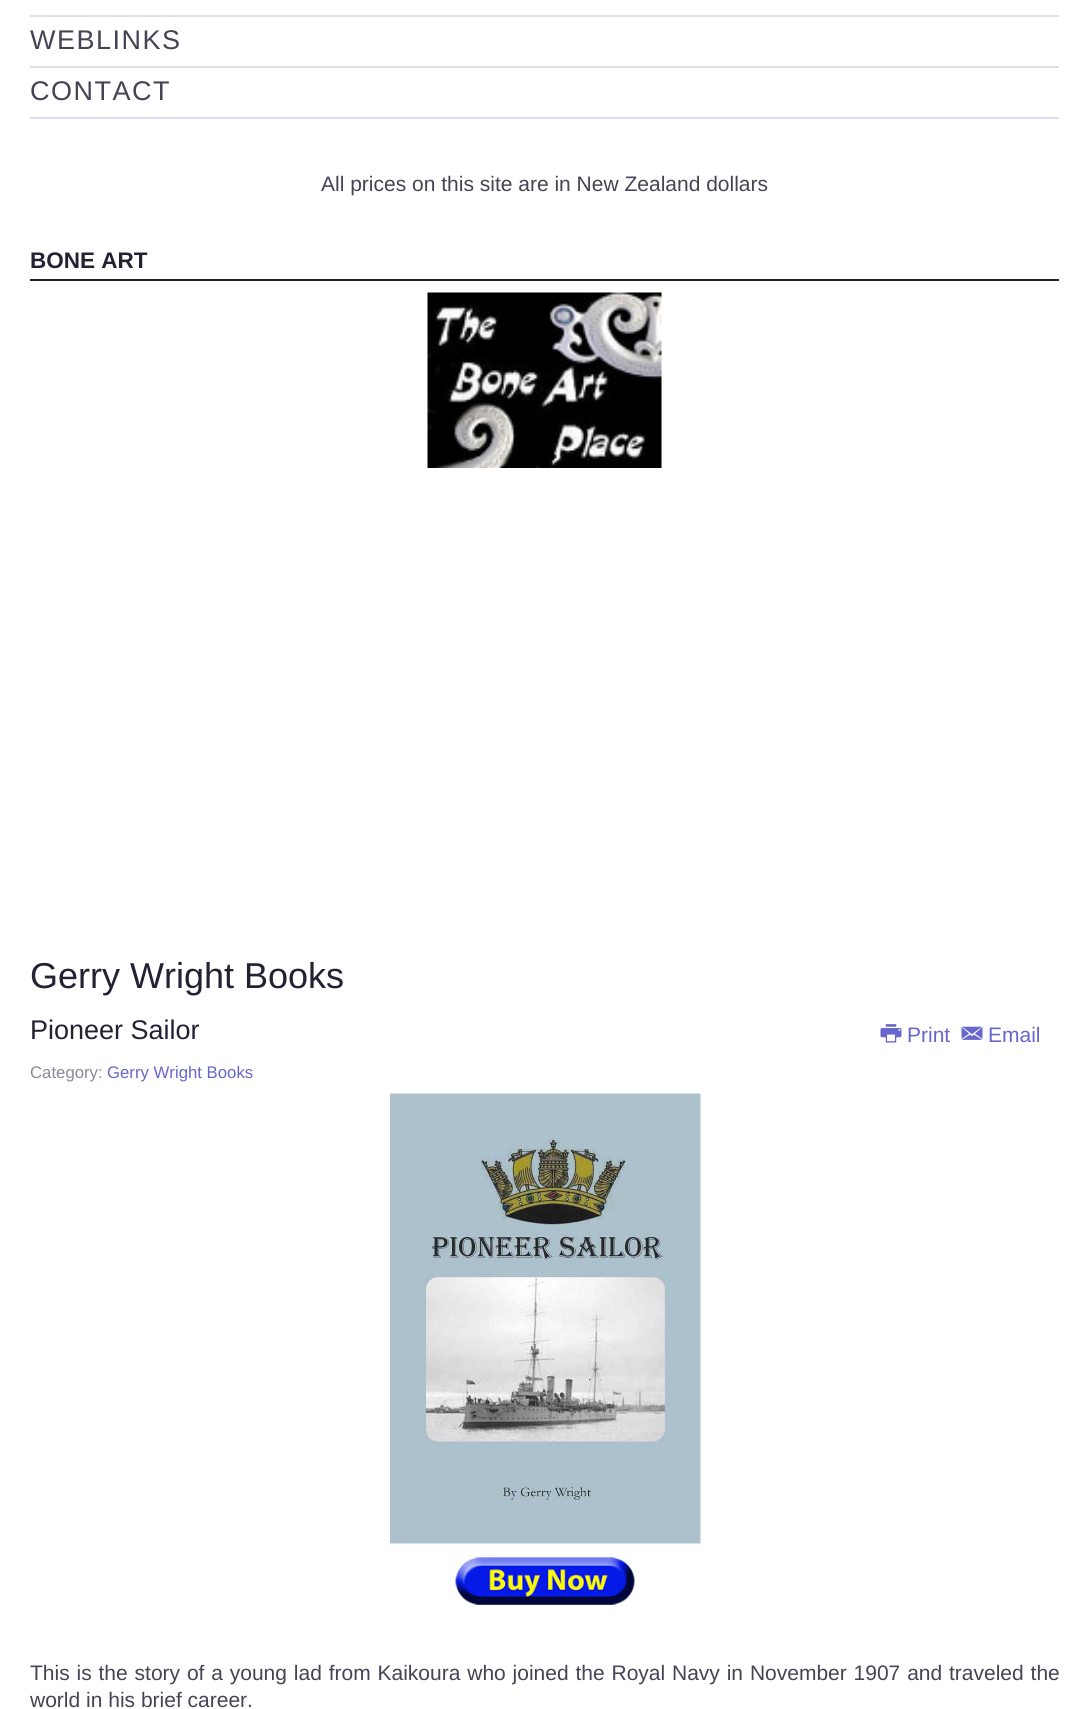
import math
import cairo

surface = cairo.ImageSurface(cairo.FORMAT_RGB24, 1088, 1709)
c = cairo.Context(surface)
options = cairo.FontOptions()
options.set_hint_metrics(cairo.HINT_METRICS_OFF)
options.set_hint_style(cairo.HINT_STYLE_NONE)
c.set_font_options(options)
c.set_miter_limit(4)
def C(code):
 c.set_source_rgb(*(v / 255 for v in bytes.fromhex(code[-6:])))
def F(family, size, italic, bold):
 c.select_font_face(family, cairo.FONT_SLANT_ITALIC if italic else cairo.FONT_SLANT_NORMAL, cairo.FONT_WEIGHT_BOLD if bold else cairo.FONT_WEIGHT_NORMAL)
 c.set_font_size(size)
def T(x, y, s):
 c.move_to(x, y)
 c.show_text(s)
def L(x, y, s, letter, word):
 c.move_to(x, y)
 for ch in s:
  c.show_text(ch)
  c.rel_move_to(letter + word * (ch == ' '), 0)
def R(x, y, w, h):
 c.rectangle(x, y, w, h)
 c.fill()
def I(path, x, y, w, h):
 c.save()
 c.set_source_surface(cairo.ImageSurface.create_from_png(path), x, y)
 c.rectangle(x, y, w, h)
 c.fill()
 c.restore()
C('ffffff')
c.paint()
C('ddddee')
R(30,15,1029,2)
R(30,66,1029,2)
F('Liberation Sans',27,0,0)
C('444455')
L(30,49,'WEBLINKS',1.5,0)
C('ddddee')
R(30,117,1029,2)
C('444455')
L(30,100,'CONTACT',1.5,0)
F('Liberation Sans',21,0,0)
T(321,191,'All prices on this site are in New Zealand dollars')
C('222233')
R(30,279,1029,2)
F('Liberation Sans',22.5,0,1)
T(30,268,'BONE ART')
I('1.png',427,292,235,176)
F('Liberation Sans',36,0,0)
T(30,988,'Gerry Wright Books')
F('Liberation Sans',27,0,0)
T(30,1039,'Pioneer Sailor')
I('2.png',880,1024,22,19)
F('Liberation Sans',21,0,0)
C('6666cc')
T(907,1042,'Print')
I('3.png',961,1026,22,14)
T(988,1042,'Email')
F('Liberation Sans',16.75,0,0)
C('888899')
T(30,1078,'Category:')
C('6666cc')
T(107,1078,'Gerry Wright Books')
I('4.png',390,1093,311,451)
I('5.png',455,1557,180,48)
F('Liberation Sans',21,0,0)
C('444455')
L(30,1680,'This is the story of a young lad from Kaikoura who joined the Royal Navy in November 1907 and traveled the',0,1)
T(30,1707,'world in his brief career.')
surface.write_to_png('o.png')
